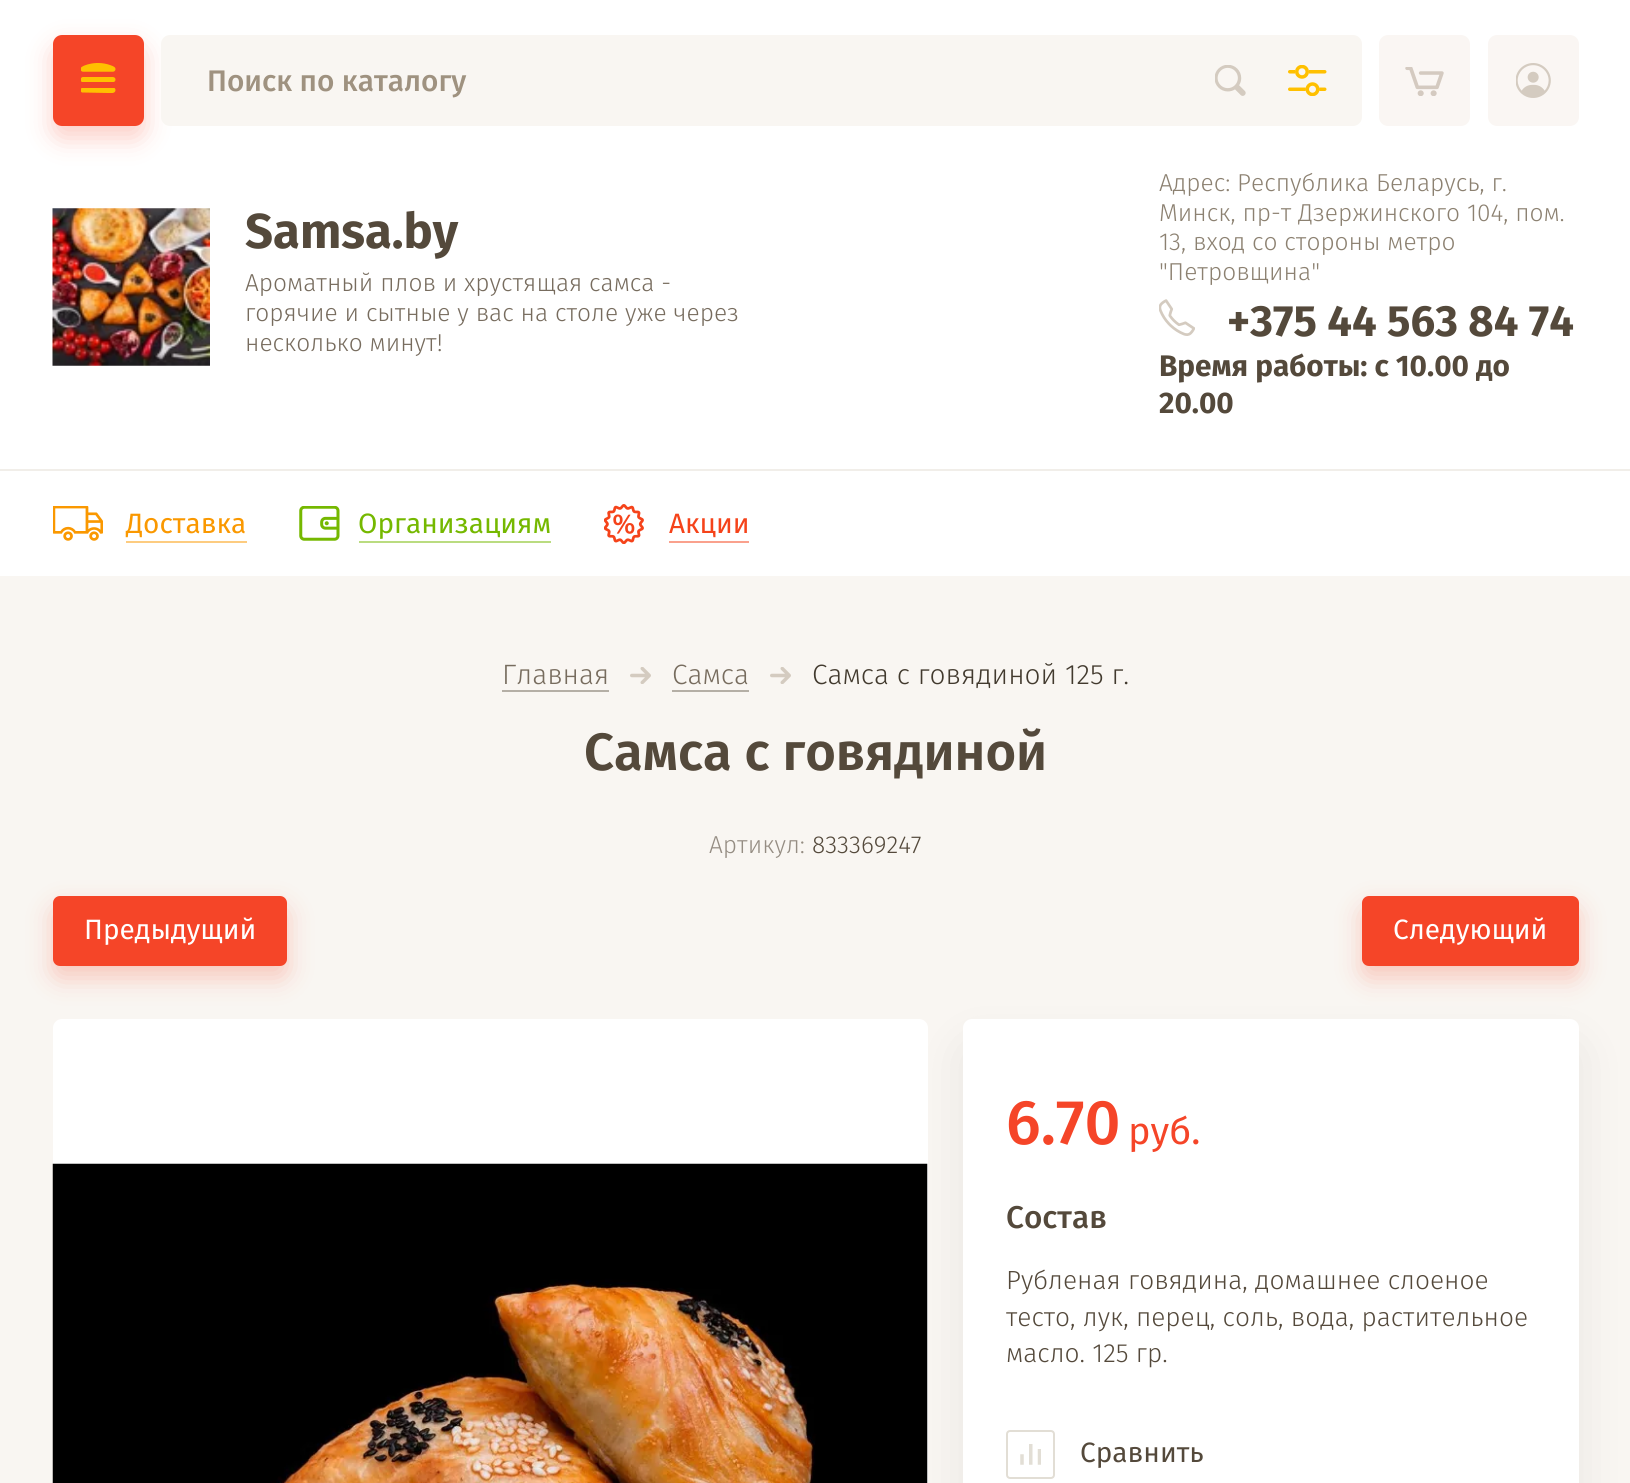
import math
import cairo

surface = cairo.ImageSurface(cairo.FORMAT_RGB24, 1630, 1483)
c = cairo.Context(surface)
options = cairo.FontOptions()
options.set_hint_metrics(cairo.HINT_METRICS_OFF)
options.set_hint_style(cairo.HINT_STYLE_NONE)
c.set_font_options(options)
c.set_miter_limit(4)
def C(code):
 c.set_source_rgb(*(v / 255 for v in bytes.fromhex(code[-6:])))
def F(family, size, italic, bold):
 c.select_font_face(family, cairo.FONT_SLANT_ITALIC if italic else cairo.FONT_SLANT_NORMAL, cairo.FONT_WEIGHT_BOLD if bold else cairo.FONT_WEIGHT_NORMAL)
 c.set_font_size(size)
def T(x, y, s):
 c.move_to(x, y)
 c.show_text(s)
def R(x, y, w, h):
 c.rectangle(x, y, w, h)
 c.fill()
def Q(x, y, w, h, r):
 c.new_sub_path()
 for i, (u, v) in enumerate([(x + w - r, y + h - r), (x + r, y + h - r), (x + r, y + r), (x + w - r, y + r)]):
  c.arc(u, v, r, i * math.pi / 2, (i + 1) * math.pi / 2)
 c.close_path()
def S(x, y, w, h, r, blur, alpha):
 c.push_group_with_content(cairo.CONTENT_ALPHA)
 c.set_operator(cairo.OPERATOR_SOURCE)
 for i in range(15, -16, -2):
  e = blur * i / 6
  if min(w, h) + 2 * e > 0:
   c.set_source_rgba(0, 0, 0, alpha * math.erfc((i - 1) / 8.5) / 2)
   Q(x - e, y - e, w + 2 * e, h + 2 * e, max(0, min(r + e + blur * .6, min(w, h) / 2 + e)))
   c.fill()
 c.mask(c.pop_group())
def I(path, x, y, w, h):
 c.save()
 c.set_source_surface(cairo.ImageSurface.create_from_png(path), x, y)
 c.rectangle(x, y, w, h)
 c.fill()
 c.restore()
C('f9f6f2')
c.paint()
C('ffffff')
R(0,0,1630,576)
C('f54528')
S(53,47,91,91,9,13,.27)
C('f54528')
Q(53,35,91,91,9)
c.fill()
c.save()
c.rectangle(81,77,35,5)
c.clip()
C('ffc000')
c.new_path()
c.move_to(83,77)
c.line_to(108,77)
c.curve_to(110,77,115.5,76,115.5,79.5)
c.curve_to(115.5,83.5,110,82,108,82)
c.line_to(82,82)
c.curve_to(79.5,81,80.5,77,83,77)
c.close_path()
c.fill()
c.restore()
I('1.png',81,63,35,9)
c.save()
c.rectangle(81,88,35,5)
c.clip()
C('ffc000')
c.new_path()
c.move_to(83,87.5)
c.line_to(108,87.5)
c.curve_to(110,87.5,115.5,86.5,115.5,90)
c.curve_to(115.5,94,110,93,108,93)
c.line_to(82,92.5)
c.curve_to(79.5,91.5,80.5,87.5,83,87.5)
c.close_path()
c.fill()
c.restore()
C('f9f6f2')
Q(161,35,1201,91,9)
c.fill()
F('Fira Sans Medium',29.75,0,0)
C('9f9280')
T(207,91,'Поиск по каталогу')
I('2.png',1215,65,31,31)
I('3.png',1288,65,39,31)
C('faf6f3')
Q(1379,35,91,91,9)
c.fill()
I('4.png',1405,67,39,29)
Q(1488,35,91,91,9)
c.fill()
I('5.png',1516,63,35,35)
I('6.png',52,208,158,158)
F('Fira Sans',49,0,1)
C('54493b')
T(245,248,'Samsa.by')
F('Fira Sans Light',24.5,0,0)
C('776c5e')
T(245,291,'Ароматный плов и хрустящая самса -')
T(245,321,'горячие и сытные у вас на столе уже через')
T(245,351,'несколько минут!')
C('8c8171')
T(1159,191,'Адрес: Республика Беларусь, г.')
T(1159,221,'Минск, пр-т Дзержинского 104, пом.')
T(1159,250,'13, вход со стороны метро')
T(1159,280,'"Петровщина"')
I('7.png',1159,299,36,37)
F('Fira Sans',43.75,0,1)
C('54493b')
T(1227,336,'+375 44 563 84 74')
F('Fira Sans',29.75,0,1)
T(1159,376,'Время работы: с 10.00 до')
T(1159,413,'20.00')
C('f1eee9')
R(0,469,1630,2)
I('8.png',53,506,50,35)
F('Fira Sans',28,0,0)
C('fa9800')
T(126,533,'Доставка')
C('fdcc80')
R(126,541,121,2)
I('9.png',299,506,41,35)
C('75b800')
T(358,533,'Организациям')
C('badc80')
R(359,541,192,2)
I('10.png',604,504,40,40)
C('f5431a')
T(669,533,'Акции')
C('faa18d')
R(669,541,80,2)
C('b5afa6')
R(502,690,107,2)
F('Fira Sans Light',28,0,0)
C('776c5e')
T(502,684,'Главная')
I('11.png',630,667,21,17)
C('b5afa6')
R(672,690,77,2)
C('776c5e')
T(672,684,'Самса')
I('11.png',770,667,21,17)
C('423a2e')
T(812,684,'Самса с говядиной 125 г.')
F('Fira Sans SemiBold',52.5,0,0)
C('54493b')
T(584,770,'Самса с говядиной')
F('Fira Sans Light',24.5,0,0)
C('958d83')
T(709,853,'Артикул:')
C('54493b')
T(812,853,'833369247')
C('f54528')
S(53,908,234,70,7,13,.27)
C('f54528')
Q(53,896,234,70,7)
c.fill()
F('Fira Sans',28,0,0)
C('ffffff')
T(84,939,'Предыдущий')
C('f54528')
S(1362,908,217,70,7,13,.27)
C('f54528')
Q(1362,896,217,70,7)
c.fill()
C('ffffff')
T(1393,939,'Следующий')
C('000000')
S(963,1045,616,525,9,26,.07)
C('ffffff')
Q(53,1019,875,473,9)
c.fill()
I('12.png',52,1163,876,320)
Q(963,1019,616,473,9)
c.fill()
F('Fira Sans Medium',63,0,0)
C('f54528')
T(1006,1144,'6.70')
F('Fira Sans',38,0,0)
T(1128,1144,'руб.')
F('Fira Sans Medium',31.5,0,0)
C('54493b')
T(1006,1228,'Состав')
F('Fira Sans Light',26.25,0,0)
T(1006,1289,'Рубленая говядина, домашнее слоеное')
T(1006,1326,'тесто, лук, перец, соль, вода, растительное')
T(1006,1362,'масло. 125 гр.')
I('13.png',1020,1444,21,21)
Q(1007,1431,47,47,3)
C('e2ded5')
c.stroke()
F('Fira Sans',28,0,0)
C('54493b')
T(1080,1462,'Сравнить')
surface.write_to_png('o.png')
